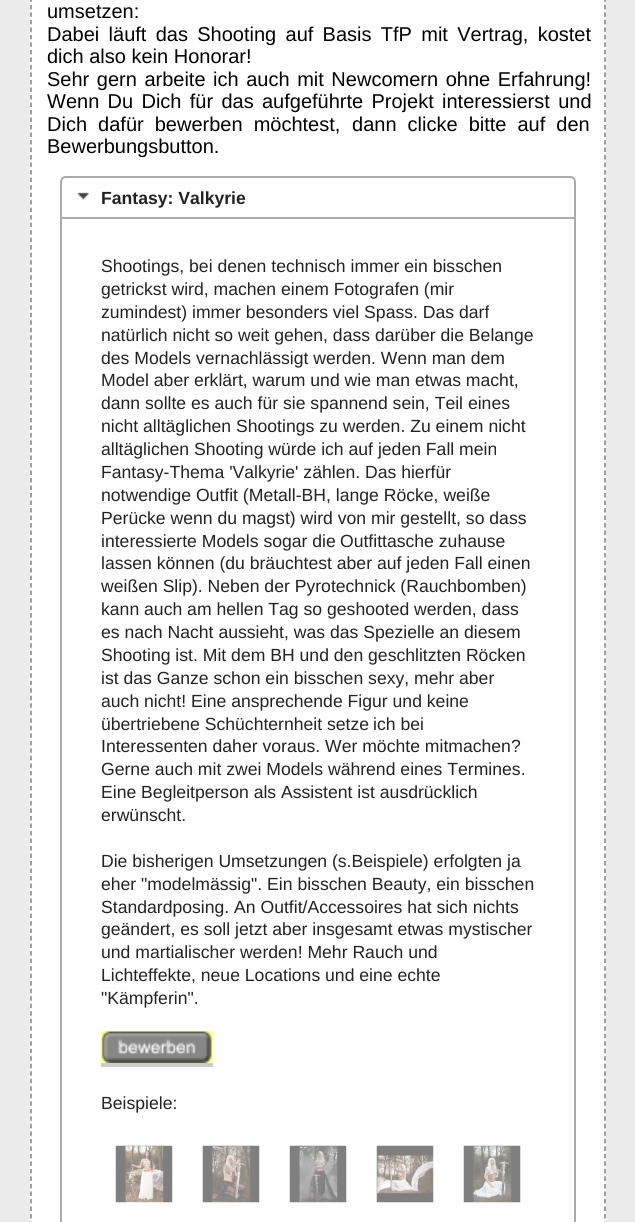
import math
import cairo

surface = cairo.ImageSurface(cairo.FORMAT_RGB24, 635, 1222)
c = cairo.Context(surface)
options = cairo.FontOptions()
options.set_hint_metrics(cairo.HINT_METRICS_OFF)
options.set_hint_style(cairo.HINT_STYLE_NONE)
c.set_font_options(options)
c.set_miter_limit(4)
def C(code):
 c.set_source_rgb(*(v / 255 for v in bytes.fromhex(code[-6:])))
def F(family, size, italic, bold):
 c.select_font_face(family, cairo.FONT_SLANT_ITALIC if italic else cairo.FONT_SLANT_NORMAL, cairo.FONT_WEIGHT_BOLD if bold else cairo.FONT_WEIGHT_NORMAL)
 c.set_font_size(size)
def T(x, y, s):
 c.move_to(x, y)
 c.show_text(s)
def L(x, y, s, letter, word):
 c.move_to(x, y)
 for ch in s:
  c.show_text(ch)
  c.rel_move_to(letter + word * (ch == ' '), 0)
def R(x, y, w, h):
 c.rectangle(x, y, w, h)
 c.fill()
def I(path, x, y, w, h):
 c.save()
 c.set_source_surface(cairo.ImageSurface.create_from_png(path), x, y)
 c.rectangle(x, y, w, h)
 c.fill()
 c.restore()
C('ebebeb')
c.paint()
C('ffffff')
R(30,0,576,1222)
c.new_path()
c.move_to(605,-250.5)
c.line_to(605,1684.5)
C('808080')
c.set_line_width(1.5)
c.set_dash([4.5,3.01])
c.stroke()
c.new_path()
c.move_to(31,-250.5)
c.line_to(31,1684.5)
c.stroke()
F('Liberation Sans',20,0,0)
C('000000')
T(47,18,'umsetzen:')
L(47,41,'Dabei läuft das Shooting auf Basis TfP mit Vertrag, kostet',0,3.75)
T(47,63,'dich also kein Honorar!')
L(47,86,'Sehr gern arbeite ich auch mit Newcomern ohne Erfahrung!',0,2)
L(47,108,'Wenn Du Dich für das aufgeführte Projekt interessierst und',0,2.75)
L(47,131,'Dich dafür bewerben möchtest,',0,5.5)
L(352,131,'dann clicke bitte auf den',0,5.5)
T(47,153,'Bewerbungsbutton.')
c.new_path()
c.move_to(66,177)
c.line_to(570,177)
c.curve_to(573,177,575,179,575,182)
c.line_to(575,218)
c.line_to(61,218)
c.line_to(61,182)
c.curve_to(61,179,63,177,66,177)
c.close_path()
C('aaaaaa')
c.set_line_width(2)
c.set_dash([])
c.stroke()
I('1.png',77,192,12,8)
F('Liberation Sans',17.6,0,1)
C('222222')
T(101,204,'Fantasy: Valkyrie')
C('aaaaaa')
c.set_fill_rule(cairo.FILL_RULE_EVEN_ODD)
c.new_path()
c.move_to(60,219)
c.line_to(576,219)
c.line_to(576,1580)
c.curve_to(576,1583,573,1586,570,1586)
c.line_to(66,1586)
c.curve_to(63,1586,60,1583,60,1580)
c.close_path()
c.move_to(62,219)
c.line_to(574,219)
c.line_to(574,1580)
c.curve_to(574,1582,572,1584,570,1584)
c.line_to(66,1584)
c.curve_to(64,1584,62,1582,62,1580)
c.close_path()
c.fill()
F('Liberation Sans',17.6,0,0)
C('222222')
T(101,272,'Shootings, bei denen technisch immer ein bisschen')
T(101,295,'getrickst wird, machen einem Fotografen (mir')
T(101,318,'zumindest) immer besonders viel Spass. Das darf')
T(101,341,'natürlich nicht so weit gehen, dass darüber die Belange')
T(101,364,'des Models vernachlässigt werden. Wenn man dem')
T(101,386,'Model aber erklärt, warum und wie man etwas macht,')
T(101,409,'dann sollte es auch für sie spannend sein, Teil eines')
T(101,432,'nicht alltäglichen Shootings zu werden. Zu einem nicht')
T(101,455,'alltäglichen Shooting würde ich auf jeden Fall mein')
T(101,478,'Fantasy-Thema \'Valkyrie\' zählen. Das hierfür')
T(101,501,'notwendige Outfit (Metall-BH, lange Röcke, weiße')
T(101,524,'Perücke wenn du magst) wird von mir gestellt, so dass')
T(101,547,'interessierte Models sogar die')
T(340,547,'Outfittasche zuhause')
T(101,569,'lassen können (du bräuchtest aber auf jeden Fall einen')
T(101,592,'weißen Slip). Neben der Pyrotechnick (Rauchbomben)')
T(101,615,'kann auch am hellen Tag so geshooted werden, dass')
T(101,638,'es nach Nacht aussieht, was das Spezielle an diesem')
T(101,661,'Shooting ist. Mit dem BH und den geschlitzten Röcken')
T(101,684,'ist das Ganze schon ein bisschen sexy, mehr aber')
T(101,707,'auch nicht! Eine ansprechende Figur und keine')
T(101,730,'übertriebene Schüchternheit setze')
T(373,730,'ich bei')
T(101,752,'Interessenten daher voraus. Wer möchte mitmachen?')
T(101,775,'Gerne auch mit zwei Models während eines Termines.')
T(101,798,'Eine Begleitperson als Assistent ist ausdrücklich')
T(101,821,'erwünscht.')
T(101,867,'Die bisherigen Umsetzungen (s.Beispiele) erfolgten ja')
T(101,890,'eher "modelmässig". Ein bisschen Beauty, ein bisschen')
T(101,913,'Standardposing. An Outfit/Accessoires hat sich nichts')
T(101,935,'geändert, es soll jetzt aber insgesamt etwas mystischer')
T(101,958,'und martialischer werden! Mehr Rauch und')
T(101,981,'Lichteffekte, neue Locations und eine echte')
T(101,1004,'"Kämpferin".')
I('2.png',100,1031,113,32)
C('cccccc')
R(101,1063,112,4)
C('222222')
T(101,1109,'Beispiele:')
I('3.png',115,1145,58,58)
I('4.png',202,1145,58,58)
I('5.png',289,1145,58,58)
I('6.png',376,1145,58,58)
I('7.png',463,1145,58,58)
surface.write_to_png('o.png')
